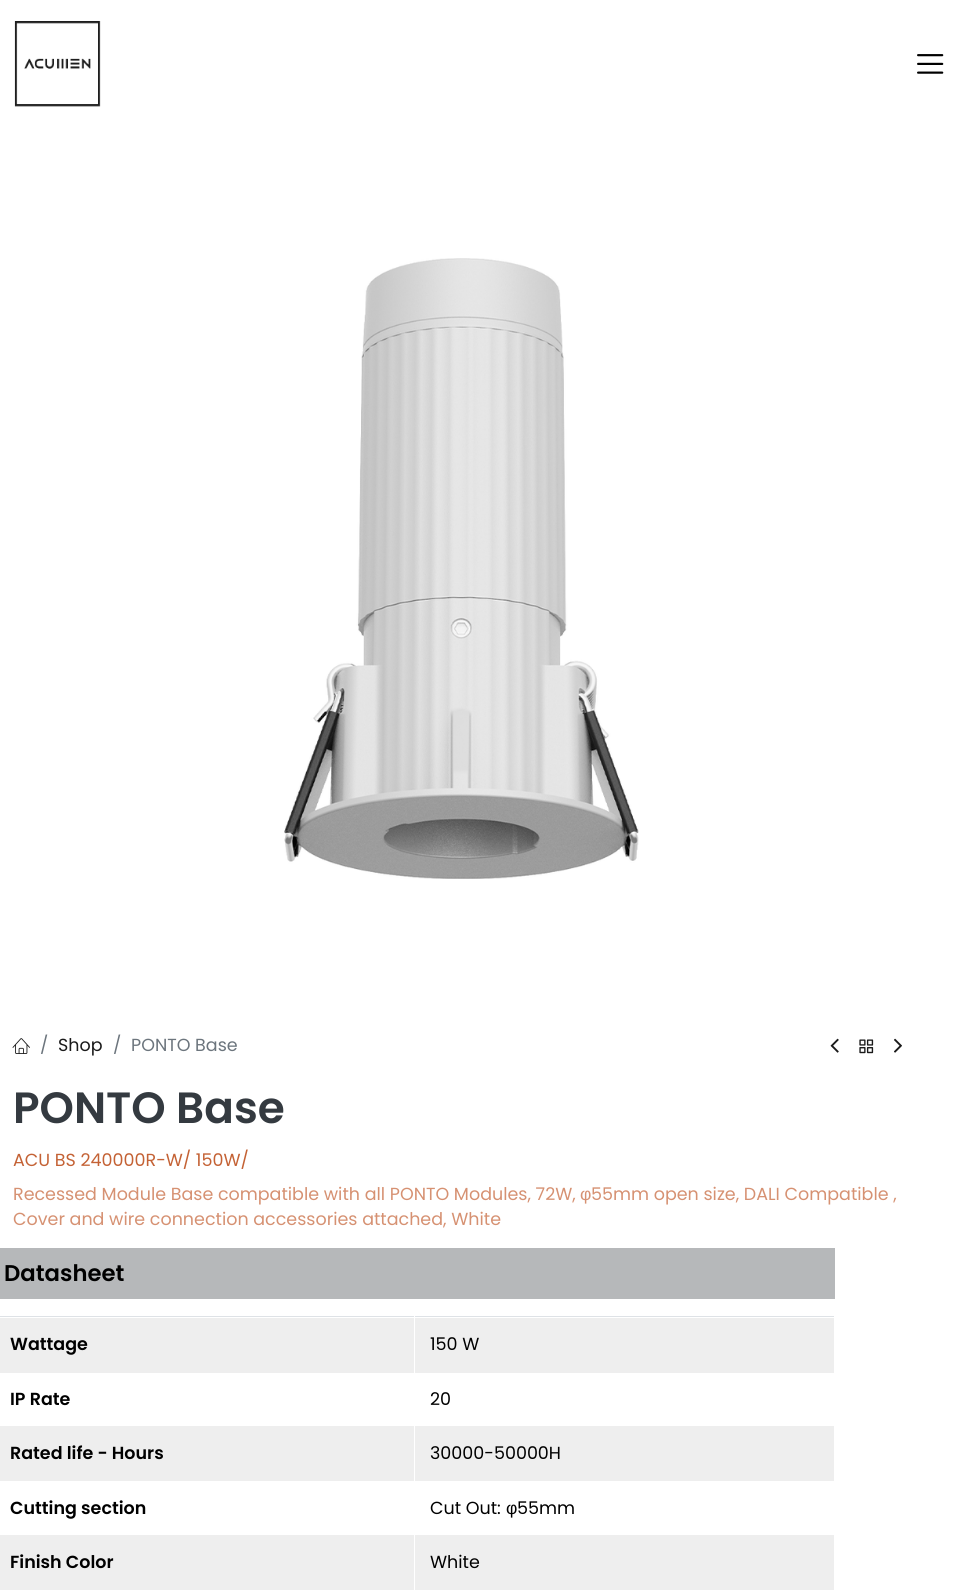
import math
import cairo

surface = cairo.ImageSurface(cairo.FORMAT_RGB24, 960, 1595)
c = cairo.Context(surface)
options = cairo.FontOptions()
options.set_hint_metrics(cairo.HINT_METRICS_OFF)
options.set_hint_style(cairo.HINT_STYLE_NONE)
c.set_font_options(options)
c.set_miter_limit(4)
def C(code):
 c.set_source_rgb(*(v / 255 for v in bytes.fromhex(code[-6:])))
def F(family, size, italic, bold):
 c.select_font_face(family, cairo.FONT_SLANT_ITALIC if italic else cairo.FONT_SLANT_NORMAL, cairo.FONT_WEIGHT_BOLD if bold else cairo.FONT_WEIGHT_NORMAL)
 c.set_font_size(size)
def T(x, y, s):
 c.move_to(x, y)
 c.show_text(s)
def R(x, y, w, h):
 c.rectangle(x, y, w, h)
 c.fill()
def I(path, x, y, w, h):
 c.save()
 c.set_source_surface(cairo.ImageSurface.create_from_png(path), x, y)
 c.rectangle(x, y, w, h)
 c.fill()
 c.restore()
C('ffffff')
c.paint()
I('1.png',14,21,87,86)
I('2.png',917,54,27,20)
I('3.png',284,258,355,621)
I('4.png',12,1038,18,16)
F('Poppins',17.5,0,0)
C('6c757d')
T(40,1051,'/')
C('1a1a1a')
T(58,1051,'Shop')
C('6c757d')
T(113,1051,'/')
T(131,1051,'PONTO Base')
I('5.png',830,1038,9,15)
I('6.png',859,1039,15,15)
I('7.png',894,1038,8,15)
F('Poppins SemiBold',43.75,0,0)
C('343a40')
T(13,1123,'PONTO Base')
F('Poppins',17.5,0,0)
C('c46235')
T(13,1166,'ACU BS 240000R-W/ 150W/')
C('d69172')
T(13,1200,'Recessed Module Base compatible with all PONTO Modules, 72W,')
F('Liberation Sans',17.5,0,0)
T(580,1200,'φ')
F('Poppins',17.5,0,0)
T(591,1200,'55mm open size, DALI Compatible ,')
T(13,1225,'Cover and wire connection accessories attached, White')
C('b6b8ba')
R(0,1248,835,51)
F('Poppins SemiBold',22.75,0,0)
C('000000')
T(4,1281,'Datasheet')
C('dee2e6')
R(0,1316,835,1)
C('eeeeee')
R(0,1318,834,55)
F('Poppins SemiBold',17.5,0,0)
C('000000')
T(10,1350,'Wattage')
C('ffffff')
R(834,1316,1,1)
F('Poppins',17.5,0,0)
C('000000')
T(430,1350,'150 W')
F('Poppins SemiBold',17.5,0,0)
T(10,1405,'IP Rate')
C('ffffff')
R(414,1316,1,57)
F('Poppins',17.5,0,0)
C('000000')
T(430,1405,'20')
C('eeeeee')
R(0,1426,834,55)
F('Poppins SemiBold',17.5,0,0)
C('000000')
T(10,1459,'Rated life - Hours')
F('Poppins',17.5,0,0)
T(430,1459,'30000-50000H')
F('Poppins SemiBold',17.5,0,0)
T(10,1514,'Cutting section')
C('ffffff')
R(414,1426,1,55)
F('Poppins',17.5,0,0)
C('000000')
T(430,1514,'Cut Out:')
F('Liberation Sans',17.5,0,0)
T(506,1514,'φ')
F('Poppins',17.5,0,0)
T(517,1514,'55mm')
C('eeeeee')
R(0,1535,834,55)
F('Poppins SemiBold',17.5,0,0)
C('000000')
T(10,1568,'Finish Color')
C('ffffff')
R(414,1535,1,56)
F('Poppins',17.5,0,0)
C('000000')
T(430,1568,'White')
surface.write_to_png('o.png')
